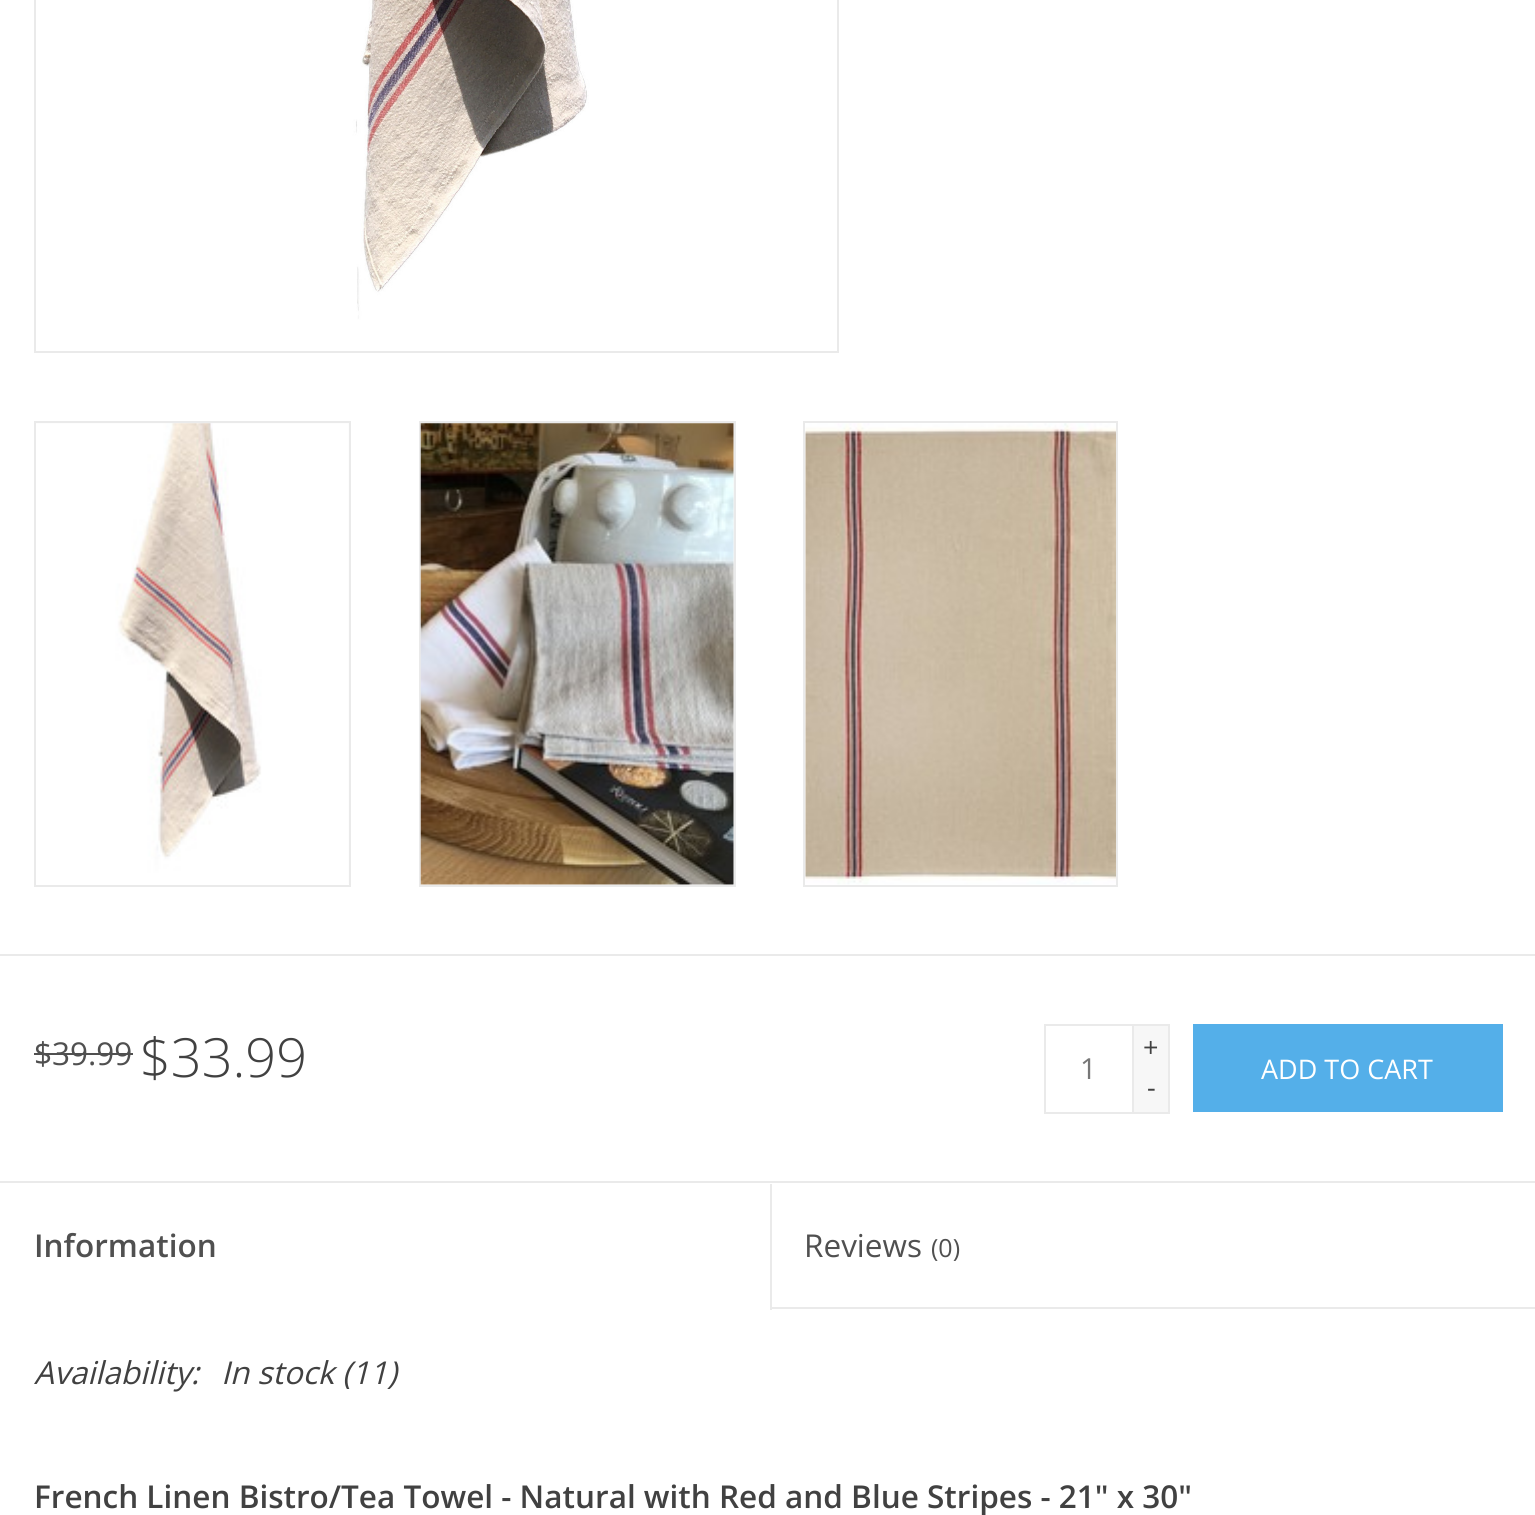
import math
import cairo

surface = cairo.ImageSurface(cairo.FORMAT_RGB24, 1535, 1515)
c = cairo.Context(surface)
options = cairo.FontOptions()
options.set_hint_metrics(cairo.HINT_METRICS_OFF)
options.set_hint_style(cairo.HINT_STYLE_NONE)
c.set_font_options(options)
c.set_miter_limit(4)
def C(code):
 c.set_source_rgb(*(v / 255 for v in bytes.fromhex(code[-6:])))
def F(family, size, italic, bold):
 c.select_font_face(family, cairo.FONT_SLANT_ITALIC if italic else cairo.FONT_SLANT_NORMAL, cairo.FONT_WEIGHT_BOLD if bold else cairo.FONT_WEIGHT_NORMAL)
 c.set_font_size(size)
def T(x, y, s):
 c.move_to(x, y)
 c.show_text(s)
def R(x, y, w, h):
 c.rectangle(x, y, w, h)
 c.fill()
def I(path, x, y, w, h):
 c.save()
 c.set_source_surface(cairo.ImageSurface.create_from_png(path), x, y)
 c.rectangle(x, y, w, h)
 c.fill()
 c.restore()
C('ffffff')
c.paint()
c.rectangle(35,-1,803,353)
C('eaeaea')
c.stroke()
I('1.png',36,0,801,351)
c.rectangle(35,422,315,464)
c.stroke()
C('f7f7f7')
R(36,423,313,461)
I('2.png',36,423,313,461)
c.rectangle(420,422,315,464)
C('eaeaea')
c.stroke()
C('f7f7f7')
R(421,423,313,461)
I('3.png',420,423,314,462)
c.rectangle(804,422,313,464)
C('eaeaea')
c.stroke()
I('4.png',805,423,311,462)
R(0,954,1535,2)
F('Open Sans',31.5,0,0)
C('505050')
T(34,1065,'$39.99')
R(34,1053,99,2)
F('Open Sans Light',54,0,0)
C('414141')
T(140,1077,'$33.99')
c.rectangle(1045,1025,88,88)
C('eaeaea')
c.stroke()
F('Open Sans',29,0,0)
C('777777')
T(1080,1079,'1')
C('f7f7f7')
R(1134,1026,34,86)
C('eaeaea')
R(1134,1024,36,2)
R(1168,1024,2,90)
R(1134,1112,36,2)
F('Open Sans',27,0,0)
C('414141')
T(1143,1057,'+')
T(1147,1097,'-')
C('54afe9')
R(1193,1024,310,88)
C('ffffff')
T(1261,1079,'ADD TO CART')
C('eaeaea')
R(0,1181,1535,2)
F('Open Sans SemiBold',31.5,0,0)
C('505050')
T(34,1257,'Information')
C('eaeaea')
R(770,1307,765,2)
R(770,1184,2,126)
F('Open Sans',31.5,0,0)
C('505050')
T(804,1257,'Reviews')
F('Open Sans',25,0,0)
T(931,1257,'(0)')
F('Open Sans',31.5,1,0)
C('414141')
T(34,1384,'Availability:')
T(221,1384,'In stock (11)')
F('Open Sans SemiBold',31.5,0,0)
T(34,1508,'French Linen Bistro/Tea Towel - Natural with Red and Blue Stripes - 21" x 30"')
surface.write_to_png('o.png')
